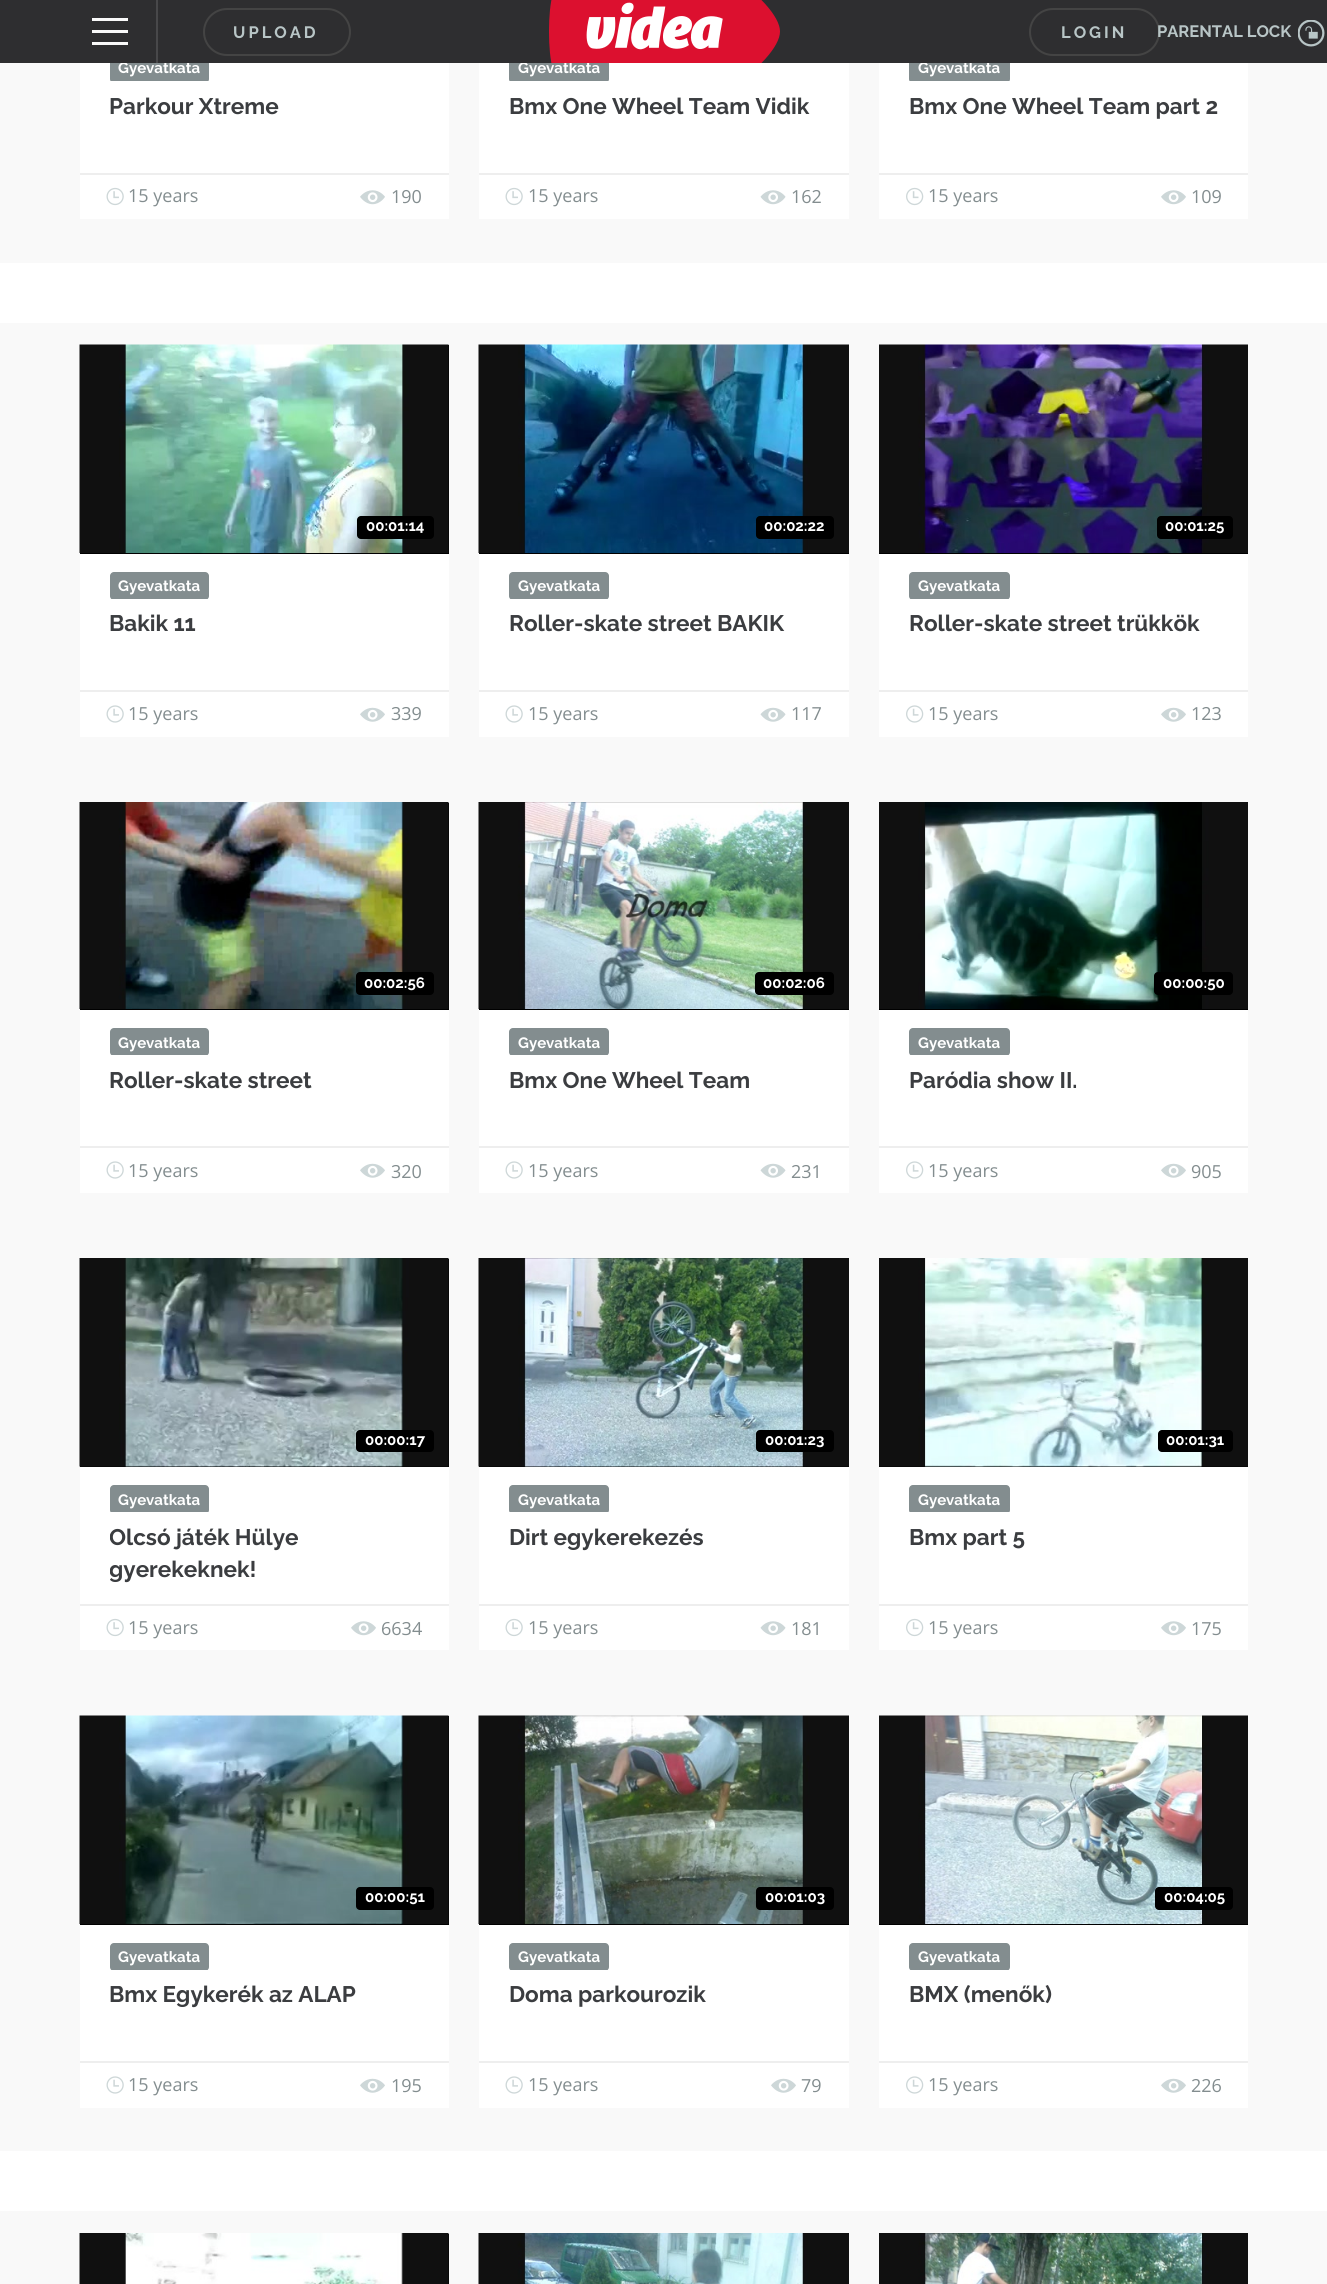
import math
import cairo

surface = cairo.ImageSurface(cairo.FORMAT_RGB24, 1327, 2284)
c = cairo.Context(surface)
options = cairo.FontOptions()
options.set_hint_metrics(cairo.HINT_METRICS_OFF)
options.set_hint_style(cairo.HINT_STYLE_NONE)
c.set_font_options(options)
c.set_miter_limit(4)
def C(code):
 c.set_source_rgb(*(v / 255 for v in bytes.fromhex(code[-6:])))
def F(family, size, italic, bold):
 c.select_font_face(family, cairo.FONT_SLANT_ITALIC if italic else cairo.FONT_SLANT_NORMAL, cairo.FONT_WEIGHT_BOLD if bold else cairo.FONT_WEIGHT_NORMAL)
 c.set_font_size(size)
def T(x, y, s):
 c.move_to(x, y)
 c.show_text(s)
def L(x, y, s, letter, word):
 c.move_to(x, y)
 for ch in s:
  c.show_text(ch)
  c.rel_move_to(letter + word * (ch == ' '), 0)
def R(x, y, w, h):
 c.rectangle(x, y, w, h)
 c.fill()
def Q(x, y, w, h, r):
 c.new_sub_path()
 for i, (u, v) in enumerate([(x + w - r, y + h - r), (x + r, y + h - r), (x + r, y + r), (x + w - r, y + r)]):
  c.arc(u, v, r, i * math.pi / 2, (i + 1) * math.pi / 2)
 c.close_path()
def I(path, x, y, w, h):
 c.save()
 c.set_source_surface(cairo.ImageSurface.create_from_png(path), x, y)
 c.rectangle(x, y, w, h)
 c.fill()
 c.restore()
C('ffffff')
c.paint()
C('f9f9f9')
R(0,63,1327,200)
C('ffffff')
R(80,63,369,156)
c.save()
c.rectangle(110,51,99,30)
c.clip()
C('838d8f')
Q(110,54,99,29,4)
c.fill()
c.restore()
F('Raleway',15,0,1)
T(118,73,'Gyevatkata')
R(479,63,370,156)
c.save()
c.rectangle(509,51,100,30)
c.clip()
C('838d8f')
Q(509,54,100,29,4)
c.fill()
c.restore()
T(518,73,'Gyevatkata')
R(879,63,369,156)
c.save()
c.rectangle(909,51,101,30)
c.clip()
C('838d8f')
Q(909,54,101,29,4)
c.fill()
c.restore()
T(918,73,'Gyevatkata')
C('2e2e30')
R(0,0,1327,63)
I('1.png',549,0,231,63)
C('48484a')
R(156,0,2,63)
c.save()
c.rectangle(92,18,36,27)
c.clip()
C('f9f9f9')
c.new_path()
c.move_to(91.5,42)
c.line_to(91.5,45)
c.line_to(129,45)
c.line_to(129,42)
c.close_path()
c.move_to(91.5,30)
c.line_to(91.5,33)
c.line_to(129,33)
c.line_to(129,30)
c.close_path()
c.move_to(91.5,18)
c.line_to(91.5,21)
c.line_to(129,21)
c.line_to(129,18)
c.close_path()
c.fill()
c.restore()
Q(204,9,146,46,23)
C('444444')
c.stroke()
F('Raleway',16.5,0,1)
C('b8c5c6')
L(233,38,'UPLOAD',3,0)
Q(1030,9,129,46,23)
C('444444')
c.stroke()
C('b8c5c6')
L(1061,38,'LOGIN',3,0)
T(1157,37,'PARENTAL LOCK')
I('2.png',1298,20,27,27)
F('Raleway',22.5,0,1)
C('3b3d40')
T(109,114,'Parkour Xtreme')
C('eeeeee')
R(80,173,369,2)
I('3.png',106,187,18,19)
F('Open Sans',18,0,0)
C('838d8f')
T(128,202,'15 years')
I('4.png',360,190,25,15)
T(391,203,'190')
F('Raleway',22.5,0,1)
C('3b3d40')
T(509,114,'Bmx One Wheel Team Vidik')
C('eeeeee')
R(479,173,370,2)
I('3.png',505,187,18,19)
F('Open Sans',18,0,0)
C('838d8f')
T(528,202,'15 years')
I('5.png',760,190,26,15)
T(791,203,'162')
F('Raleway',22.5,0,1)
C('3b3d40')
T(909,114,'Bmx One Wheel Team part 2')
C('eeeeee')
R(879,173,369,2)
I('6.png',906,187,18,19)
F('Open Sans',18,0,0)
C('838d8f')
T(928,202,'15 years')
I('4.png',1161,190,25,15)
T(1191,203,'109')
C('f9f9f9')
R(0,323,1327,1828)
C('ffffff')
R(80,554,369,183)
C('000000')
R(80,345,369,209)
I('7.png',79,344,370,209)
Q(357,516,77,23,4)
c.fill()
F('Raleway',15,0,1)
C('ffffff')
T(366,531,'00:01:14')
c.save()
c.rectangle(110,569,99,30)
c.clip()
C('838d8f')
Q(110,572,99,28,4)
c.fill()
c.restore()
T(118,591,'Gyevatkata')
F('Raleway',22.5,0,1)
C('3b3d40')
T(109,631,'Bakik 11')
C('eeeeee')
R(80,690,369,2)
I('8.png',106,705,18,18)
F('Open Sans',18,0,0)
C('838d8f')
T(128,720,'15 years')
I('9.png',360,707,25,15)
T(391,720,'339')
C('ffffff')
R(479,554,370,183)
C('000000')
R(479,553,370,1)
I('10.png',478,344,371,209)
Q(756,516,78,23,4)
c.fill()
F('Raleway',15,0,1)
C('ffffff')
T(764,531,'00:02:22')
c.save()
c.rectangle(509,569,100,30)
c.clip()
C('838d8f')
Q(509,572,100,28,4)
c.fill()
c.restore()
T(518,591,'Gyevatkata')
F('Raleway',22.5,0,1)
C('3b3d40')
T(509,631,'Roller-skate street BAKIK')
C('eeeeee')
R(479,690,370,2)
I('8.png',505,705,18,18)
F('Open Sans',18,0,0)
C('838d8f')
T(528,720,'15 years')
I('11.png',760,707,26,15)
T(791,720,'117')
C('ffffff')
R(879,554,369,183)
C('000000')
R(879,553,369,1)
I('12.png',879,344,369,209)
Q(1157,516,76,23,4)
c.fill()
F('Raleway',15,0,1)
C('ffffff')
T(1165,531,'00:01:25')
c.save()
c.rectangle(909,569,101,30)
c.clip()
C('838d8f')
Q(909,572,101,28,4)
c.fill()
c.restore()
T(918,591,'Gyevatkata')
F('Raleway',22.5,0,1)
C('3b3d40')
T(909,631,'Roller-skate street trükkök')
C('eeeeee')
R(879,690,369,2)
I('13.png',906,705,18,18)
F('Open Sans',18,0,0)
C('838d8f')
T(928,720,'15 years')
I('9.png',1161,707,25,15)
T(1191,720,'123')
C('ffffff')
R(80,1010,369,183)
C('000000')
R(80,803,369,207)
I('14.png',79,802,370,207)
Q(356,972,78,23,4)
c.fill()
F('Raleway',15,0,1)
C('ffffff')
T(364,988,'00:02:56')
c.save()
c.rectangle(110,1025,99,30)
c.clip()
C('838d8f')
Q(110,1028,99,28,4)
c.fill()
c.restore()
T(118,1048,'Gyevatkata')
F('Raleway',22.5,0,1)
C('3b3d40')
T(109,1088,'Roller-skate street')
C('eeeeee')
R(80,1146,369,2)
I('8.png',106,1161,18,18)
F('Open Sans',18,0,0)
C('838d8f')
T(128,1177,'15 years')
I('9.png',360,1163,25,15)
T(391,1178,'320')
C('ffffff')
R(479,1010,370,183)
C('000000')
R(479,1009,370,1)
I('15.png',478,802,371,207)
Q(755,972,79,23,4)
c.fill()
F('Raleway',15,0,1)
C('ffffff')
T(763,988,'00:02:06')
c.save()
c.rectangle(509,1025,100,30)
c.clip()
C('838d8f')
Q(509,1028,100,28,4)
c.fill()
c.restore()
T(518,1048,'Gyevatkata')
F('Raleway',22.5,0,1)
C('3b3d40')
T(509,1088,'Bmx One Wheel Team')
C('eeeeee')
R(479,1146,370,2)
I('8.png',505,1161,18,18)
F('Open Sans',18,0,0)
C('838d8f')
T(528,1177,'15 years')
I('11.png',760,1163,26,15)
T(791,1178,'231')
C('ffffff')
R(879,1010,369,183)
C('000000')
R(879,1009,369,1)
I('16.png',879,802,369,207)
Q(1154,972,79,23,4)
c.fill()
F('Raleway',15,0,1)
C('ffffff')
T(1163,988,'00:00:50')
c.save()
c.rectangle(909,1025,101,30)
c.clip()
C('838d8f')
Q(909,1028,101,28,4)
c.fill()
c.restore()
T(918,1048,'Gyevatkata')
F('Raleway',22.5,0,1)
C('3b3d40')
T(909,1088,'Paródia show II.')
C('eeeeee')
R(879,1146,369,2)
I('13.png',906,1161,18,18)
F('Open Sans',18,0,0)
C('838d8f')
T(928,1177,'15 years')
I('9.png',1161,1163,25,15)
T(1191,1178,'905')
C('ffffff')
R(80,1467,369,183)
C('000000')
R(80,1259,369,208)
I('17.png',79,1258,370,209)
Q(356,1430,78,22,4)
c.fill()
F('Raleway',15,0,1)
C('ffffff')
T(365,1445,'00:00:17')
c.save()
c.rectangle(110,1482,99,30)
c.clip()
C('838d8f')
Q(110,1485,99,29,4)
c.fill()
c.restore()
T(118,1505,'Gyevatkata')
c.save()
c.rectangle(110,1523,309,66)
c.clip()
F('Raleway',22.5,0,1)
C('3b3d40')
T(109,1545,'Olcsó játék Hülye')
T(109,1577,'gyerekeknek!')
c.restore()
C('eeeeee')
R(80,1604,369,2)
I('3.png',106,1618,18,19)
F('Open Sans',18,0,0)
C('838d8f')
T(128,1634,'15 years')
I('4.png',351,1621,25,15)
T(381,1635,'6634')
C('ffffff')
R(479,1467,370,183)
C('000000')
R(479,1466,370,1)
I('18.png',478,1258,371,209)
Q(756,1430,78,22,4)
c.fill()
F('Raleway',15,0,1)
C('ffffff')
T(765,1445,'00:01:23')
c.save()
c.rectangle(509,1482,100,30)
c.clip()
C('838d8f')
Q(509,1485,100,29,4)
c.fill()
c.restore()
T(518,1505,'Gyevatkata')
F('Raleway',22.5,0,1)
C('3b3d40')
T(509,1545,'Dirt egykerekezés')
C('eeeeee')
R(479,1604,370,2)
I('3.png',505,1618,18,19)
F('Open Sans',18,0,0)
C('838d8f')
T(528,1634,'15 years')
I('5.png',760,1621,26,15)
T(791,1635,'181')
C('ffffff')
R(879,1467,369,183)
C('000000')
R(879,1466,369,1)
I('19.png',879,1258,369,209)
Q(1158,1430,75,22,4)
c.fill()
F('Raleway',15,0,1)
C('ffffff')
T(1166,1445,'00:01:31')
c.save()
c.rectangle(909,1482,101,30)
c.clip()
C('838d8f')
Q(909,1485,101,29,4)
c.fill()
c.restore()
T(918,1505,'Gyevatkata')
F('Raleway',22.5,0,1)
C('3b3d40')
T(909,1545,'Bmx part 5')
C('eeeeee')
R(879,1604,369,2)
I('6.png',906,1618,18,19)
F('Open Sans',18,0,0)
C('838d8f')
T(928,1634,'15 years')
I('4.png',1161,1621,25,15)
T(1191,1635,'175')
C('ffffff')
R(80,1925,369,183)
C('000000')
R(80,1716,369,209)
I('20.png',79,1715,370,209)
Q(356,1887,78,23,4)
c.fill()
F('Raleway',15,0,1)
C('ffffff')
T(365,1902,'00:00:51')
c.save()
c.rectangle(110,1940,99,30)
c.clip()
C('838d8f')
Q(110,1943,99,28,4)
c.fill()
c.restore()
T(118,1962,'Gyevatkata')
F('Raleway',22.5,0,1)
C('3b3d40')
T(109,2002,'Bmx Egykerék az ALAP')
C('eeeeee')
R(80,2061,369,2)
I('8.png',106,2076,18,18)
F('Open Sans',18,0,0)
C('838d8f')
T(128,2091,'15 years')
I('9.png',360,2078,25,15)
T(391,2092,'195')
C('ffffff')
R(479,1925,370,183)
C('000000')
R(479,1924,370,1)
I('21.png',478,1715,371,209)
Q(756,1887,78,23,4)
c.fill()
F('Raleway',15,0,1)
C('ffffff')
T(765,1902,'00:01:03')
c.save()
c.rectangle(509,1940,100,30)
c.clip()
C('838d8f')
Q(509,1943,100,28,4)
c.fill()
c.restore()
T(518,1962,'Gyevatkata')
F('Raleway',22.5,0,1)
C('3b3d40')
T(509,2002,'Doma parkourozik')
C('eeeeee')
R(479,2061,370,2)
I('8.png',505,2076,18,18)
F('Open Sans',18,0,0)
C('838d8f')
T(528,2091,'15 years')
I('9.png',771,2078,25,15)
T(801,2092,'79')
C('ffffff')
R(879,1925,369,183)
C('000000')
R(879,1924,369,1)
I('22.png',879,1715,369,209)
Q(1155,1887,78,23,4)
c.fill()
F('Raleway',15,0,1)
C('ffffff')
T(1164,1902,'00:04:05')
c.save()
c.rectangle(909,1940,101,30)
c.clip()
C('838d8f')
Q(909,1943,101,28,4)
c.fill()
c.restore()
T(918,1962,'Gyevatkata')
F('Raleway',22.5,0,1)
C('3b3d40')
T(909,2002,'BMX (menők)')
C('eeeeee')
R(879,2061,369,2)
I('13.png',906,2076,18,18)
F('Open Sans',18,0,0)
C('838d8f')
T(928,2091,'15 years')
I('9.png',1161,2078,25,15)
T(1191,2092,'226')
C('f9f9f9')
R(0,2211,1327,73)
C('000000')
R(448,2234,1,50)
I('23.png',79,2233,370,51)
I('24.png',478,2233,371,51)
I('25.png',879,2233,369,51)
surface.write_to_png('o.png')
